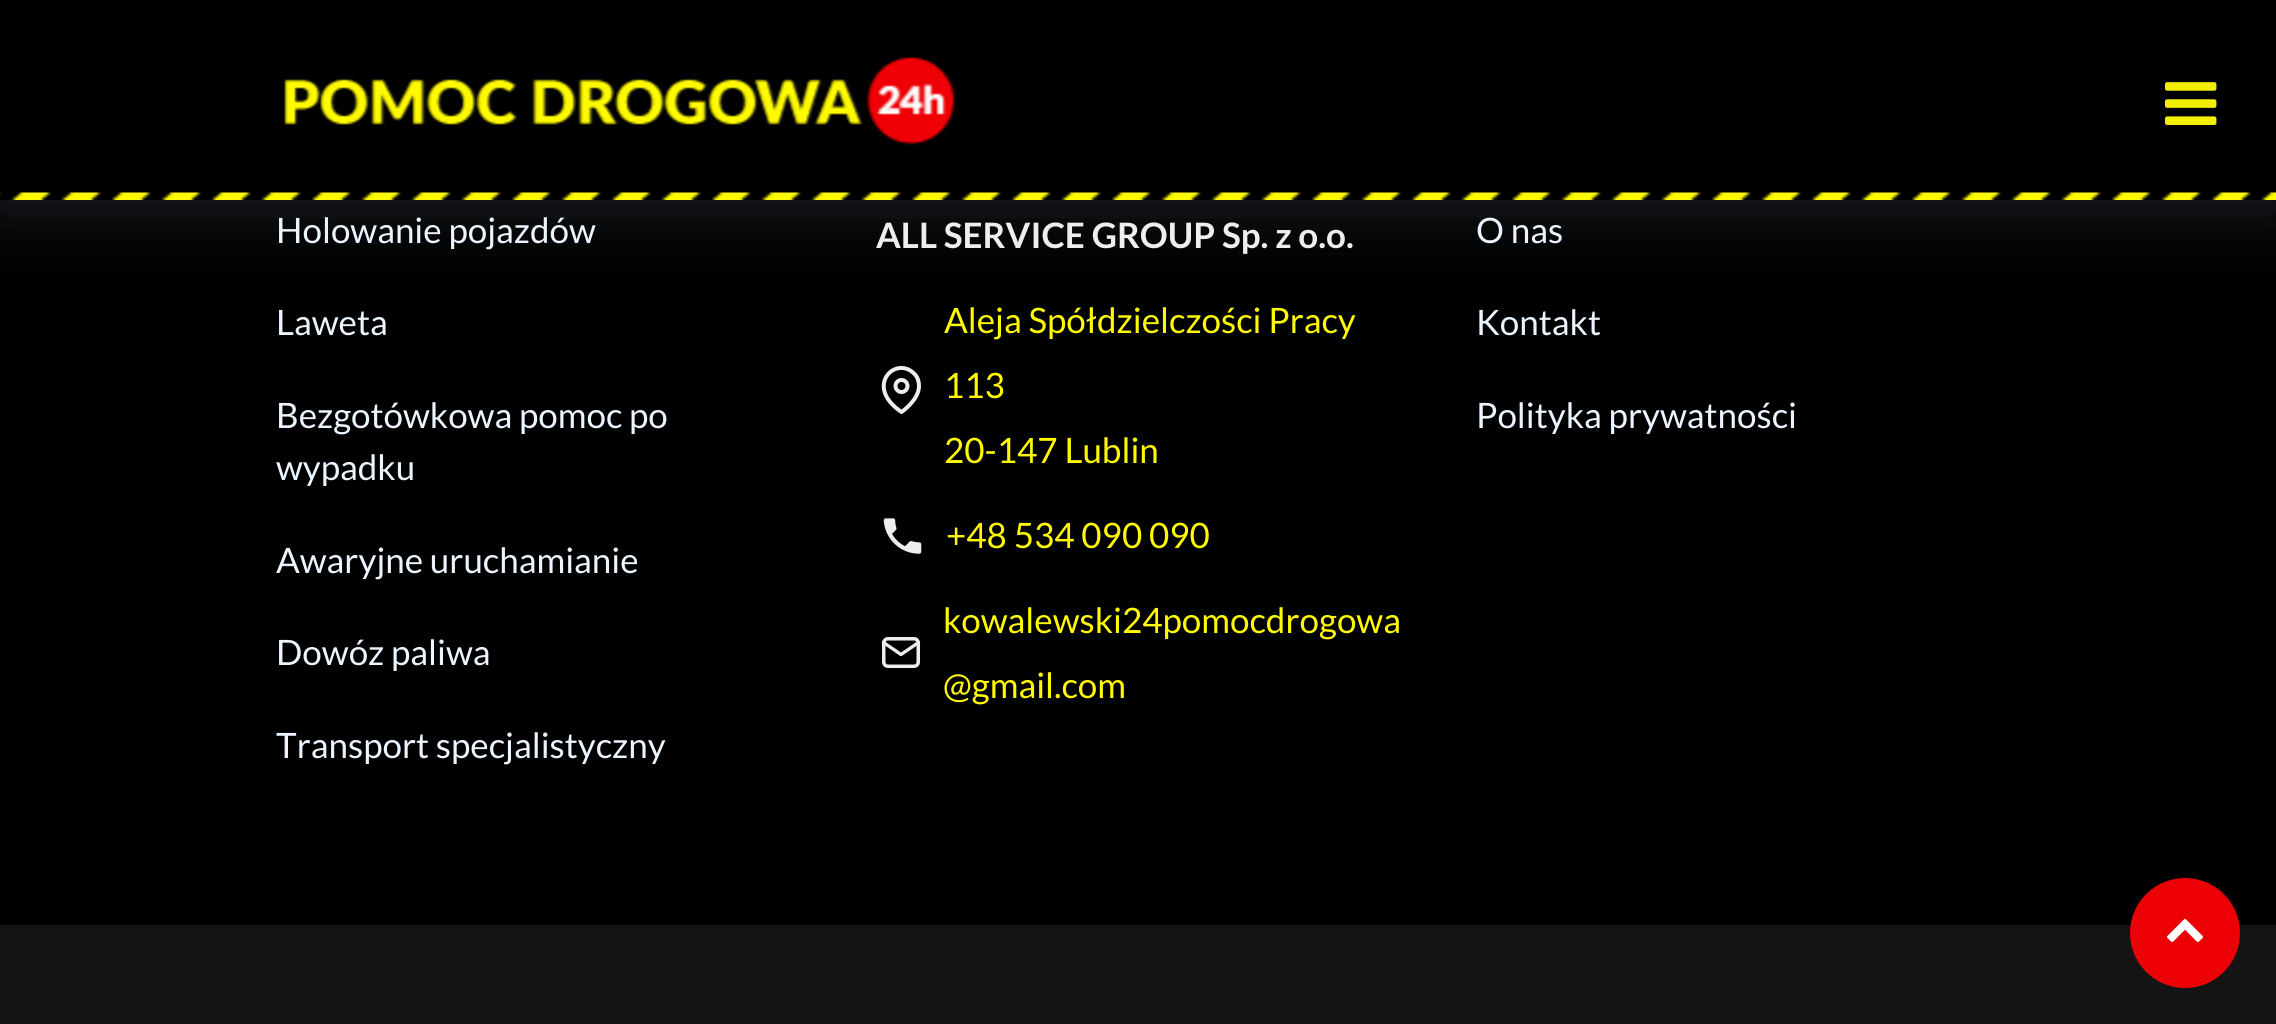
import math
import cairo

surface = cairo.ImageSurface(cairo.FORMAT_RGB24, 2276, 1024)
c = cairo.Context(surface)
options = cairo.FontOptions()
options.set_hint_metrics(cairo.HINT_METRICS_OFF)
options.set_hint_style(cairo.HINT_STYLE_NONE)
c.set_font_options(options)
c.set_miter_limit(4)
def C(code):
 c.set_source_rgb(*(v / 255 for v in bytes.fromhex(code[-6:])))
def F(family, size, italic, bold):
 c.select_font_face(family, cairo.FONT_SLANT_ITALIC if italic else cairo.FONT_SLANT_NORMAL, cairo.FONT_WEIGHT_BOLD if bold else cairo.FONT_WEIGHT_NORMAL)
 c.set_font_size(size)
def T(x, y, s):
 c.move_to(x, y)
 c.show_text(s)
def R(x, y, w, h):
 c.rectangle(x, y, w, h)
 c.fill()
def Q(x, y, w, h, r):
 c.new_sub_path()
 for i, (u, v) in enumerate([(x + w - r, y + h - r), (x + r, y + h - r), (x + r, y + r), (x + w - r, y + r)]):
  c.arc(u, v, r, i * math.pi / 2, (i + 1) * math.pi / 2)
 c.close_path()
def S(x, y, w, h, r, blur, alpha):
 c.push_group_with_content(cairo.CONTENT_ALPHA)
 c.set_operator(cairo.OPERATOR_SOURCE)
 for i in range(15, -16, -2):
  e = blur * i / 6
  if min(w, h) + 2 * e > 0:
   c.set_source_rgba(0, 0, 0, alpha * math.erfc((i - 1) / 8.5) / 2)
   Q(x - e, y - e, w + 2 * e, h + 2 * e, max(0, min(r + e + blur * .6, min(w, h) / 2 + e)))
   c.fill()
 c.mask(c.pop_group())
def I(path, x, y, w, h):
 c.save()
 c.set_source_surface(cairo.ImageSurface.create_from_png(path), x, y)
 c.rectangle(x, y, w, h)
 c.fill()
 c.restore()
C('141414')
c.paint()
C('000000')
R(0,200,2276,725)
C('7f89a1')
S(0,0,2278,200,0,37.5,.3)
C('000000')
R(0,0,2276,193)
I('1.png',0,192,2276,8)
I('2.png',284,56,672,89)
I('3.png',2165,82,52,43)
F('Lato',35,0,0)
C('ecf5ff')
T(276,243,'Holowanie pojazdów')
T(276,335,'Laweta')
T(276,428,'Bezgotówkowa pomoc po')
T(276,480,'wypadku')
T(276,573,'Awaryjne uruchamianie')
T(276,665,'Dowóz paliwa')
T(276,758,'Transport specjalistyczny')
F('Lato',35,0,1)
C('eeeeee')
T(876,248,'ALL SERVICE GROUP Sp. z o.o.')
c.new_path()
c.move_to(919,386)
c.curve_to(919,400,901.5,412,901.5,412)
c.curve_to(863.5,386.5,895.5,355,914,373.5)
c.curve_to(917.5,376.5,919,381.5,919,386)
c.close_path()
c.set_line_width(4)
c.set_line_cap(cairo.LINE_CAP_ROUND)
c.set_line_join(cairo.LINE_JOIN_ROUND)
c.stroke()
c.arc(901.5,386,6,0,2 * math.pi)
c.set_line_cap(cairo.LINE_CAP_BUTT)
c.set_line_join(cairo.LINE_JOIN_MITER)
c.stroke()
F('Lato',35,0,0)
C('fffa00')
T(944,333,'Aleja Spółdzielczości Pracy')
T(944,398,'113')
T(944,463,'20-147 Lublin')
I('4.png',883,518,39,36)
T(946,548,'+48 534 090 090')
Q(883.75,638.75,34.5,27.5,4.25)
C('eeeeee')
c.set_line_width(3.5)
c.stroke()
c.new_path()
c.move_to(883.5,642.5)
c.line_to(901,654.5)
c.line_to(918.5,642.5)
c.set_line_width(3.3)
c.set_line_cap(cairo.LINE_CAP_ROUND)
c.set_line_join(cairo.LINE_JOIN_ROUND)
c.stroke()
C('fffa00')
T(943,633,'kowalewski24pomocdrogowa')
T(943,698,'@gmail.com')
C('ecf5ff')
T(1476,243,'O nas')
T(1476,335,'Kontakt')
T(1476,428,'Polityka prywatności')
c.set_source_rgba(0.933,0,0.024,0.99)
c.new_path()
c.arc(2185,933,55,0,2 * math.pi)
c.fill()
I('5.png',2167,919,36,23)
surface.write_to_png('o.png')
